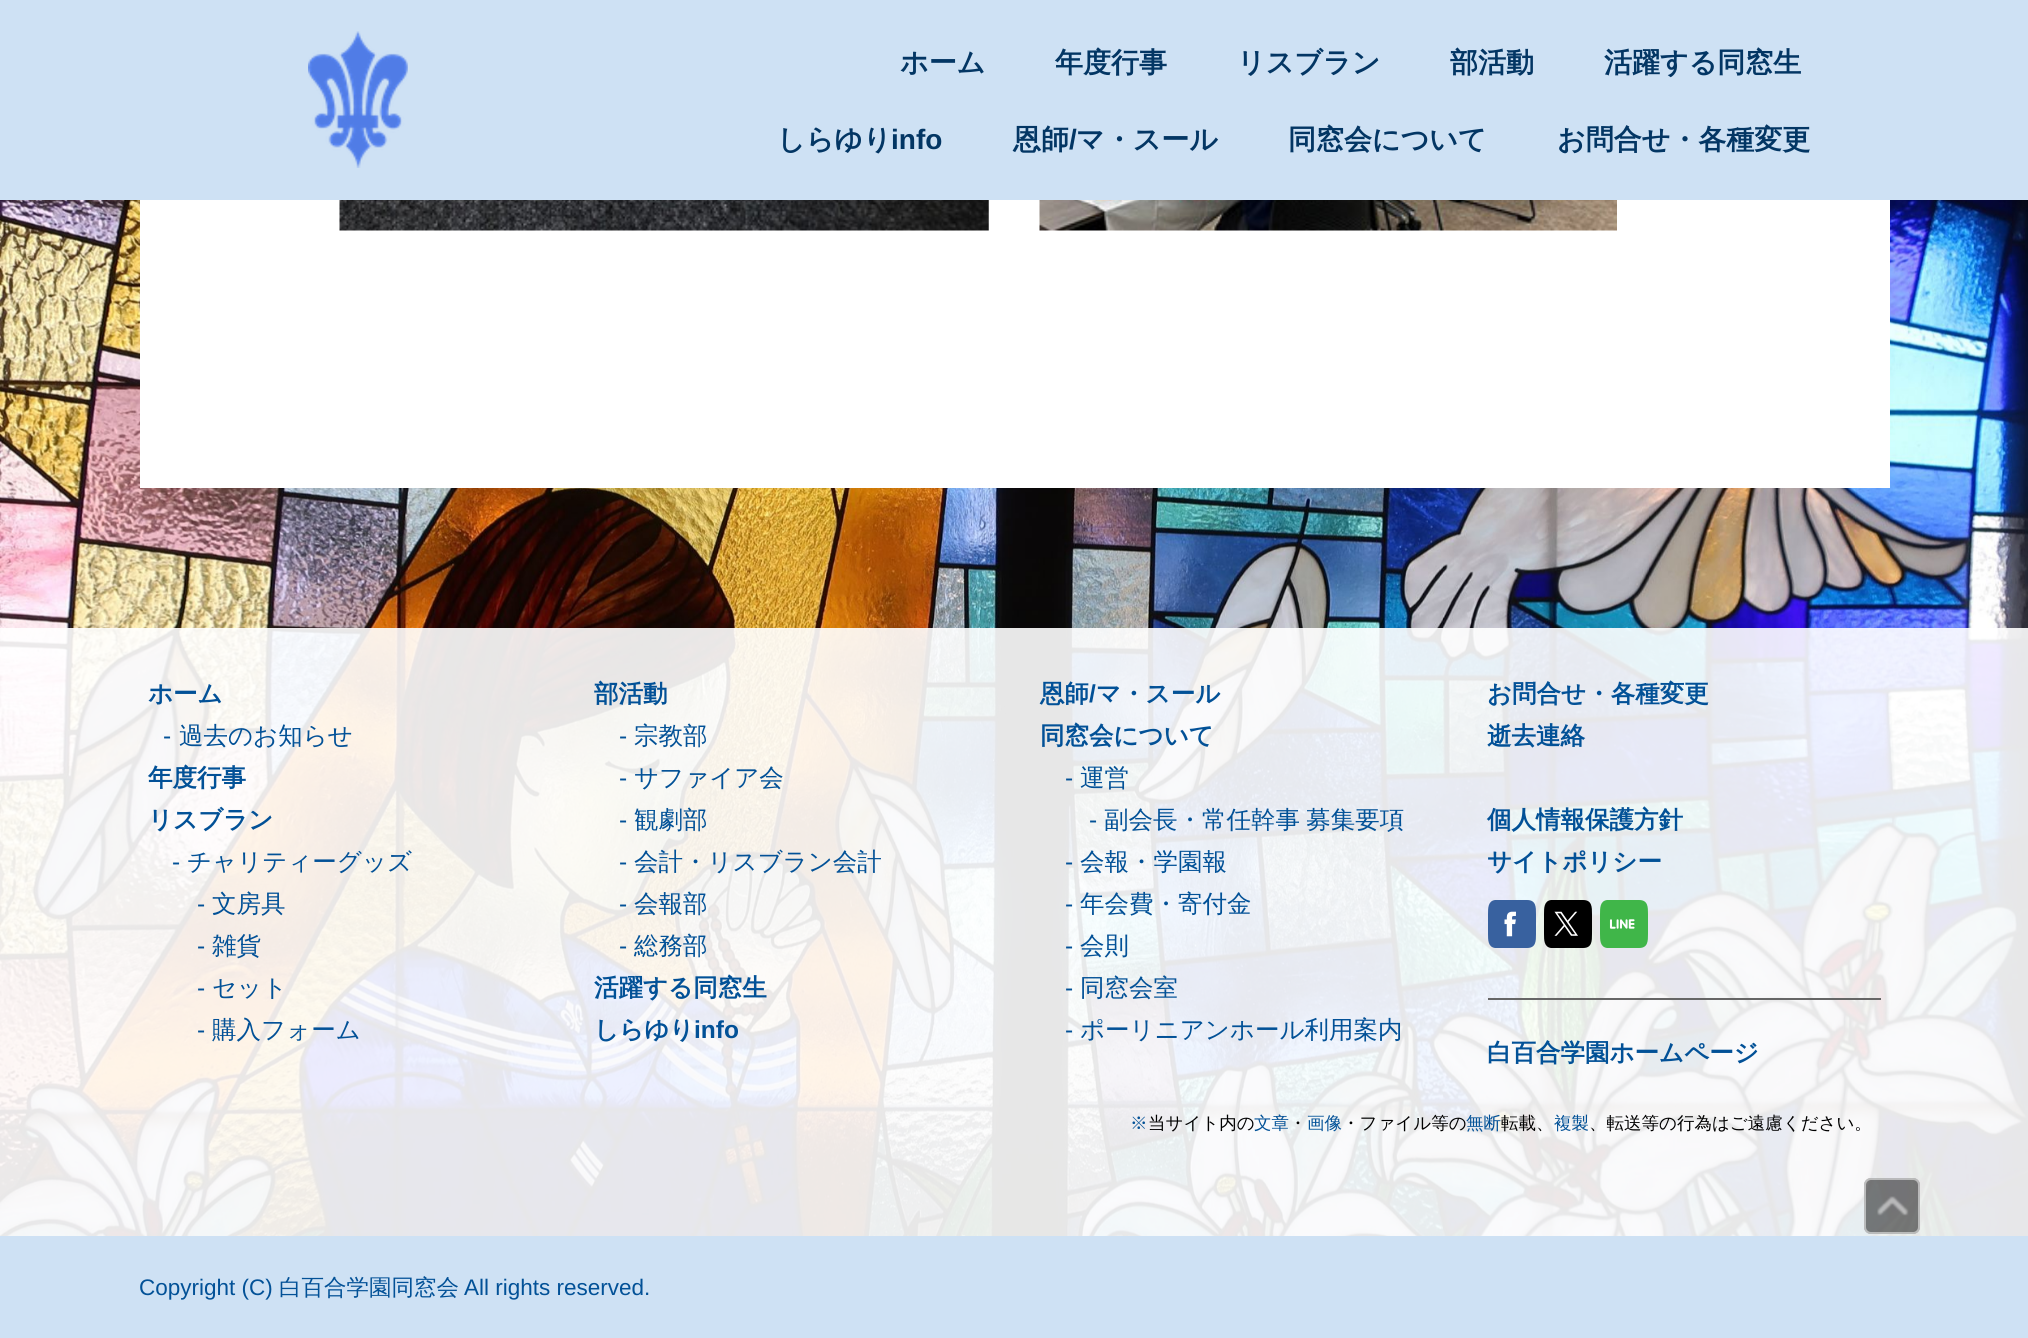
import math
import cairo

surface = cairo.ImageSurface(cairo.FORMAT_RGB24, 2028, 1338)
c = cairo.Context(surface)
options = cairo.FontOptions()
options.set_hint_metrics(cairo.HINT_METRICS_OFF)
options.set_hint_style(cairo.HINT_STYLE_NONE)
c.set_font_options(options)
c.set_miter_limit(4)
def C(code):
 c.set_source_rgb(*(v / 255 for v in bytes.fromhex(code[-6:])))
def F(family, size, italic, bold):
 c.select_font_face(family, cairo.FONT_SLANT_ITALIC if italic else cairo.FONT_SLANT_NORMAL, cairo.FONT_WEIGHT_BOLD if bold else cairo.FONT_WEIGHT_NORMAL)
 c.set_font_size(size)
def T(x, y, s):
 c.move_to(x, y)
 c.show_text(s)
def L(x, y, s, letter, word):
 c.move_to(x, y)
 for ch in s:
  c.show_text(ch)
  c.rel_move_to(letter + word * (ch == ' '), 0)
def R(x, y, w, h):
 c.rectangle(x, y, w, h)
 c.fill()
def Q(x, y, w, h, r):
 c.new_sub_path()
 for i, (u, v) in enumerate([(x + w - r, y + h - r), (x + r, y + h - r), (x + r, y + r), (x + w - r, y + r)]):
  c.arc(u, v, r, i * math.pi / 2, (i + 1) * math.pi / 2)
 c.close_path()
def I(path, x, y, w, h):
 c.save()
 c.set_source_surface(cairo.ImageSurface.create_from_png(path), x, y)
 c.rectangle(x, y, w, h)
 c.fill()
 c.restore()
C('ffffff')
c.paint()
C('cee1f4')
R(0,0,2028,200)
I('1.png',308,31,100,137)
F('WenQuanYi Zen Hei',28,0,1)
C('033664')
T(900,72,'ホーム')
T(1055,72,'年度行事')
T(1237,72,'リスブラン')
T(1450,72,'部活動')
T(1604,72,'活躍する同窓生')
T(777,149,'しらゆり')
F('Liberation Sans',28,0,1)
T(891,149,'info')
F('WenQuanYi Zen Hei',28,0,1)
T(1013,149,'恩師')
F('Liberation Sans',28,0,1)
T(1069,149,'/')
F('WenQuanYi Zen Hei',28,0,1)
T(1076,149,'マ・スール')
T(1288,149,'同窓会について')
T(1557,149,'お問合せ・各種変更')
I('2.png',0,200,2028,1036)
C('ffffff')
R(140,200,1750,288)
I('3.png',339,200,650,31)
I('4.png',1039,200,578,31)
c.set_source_rgba(1,1,1,0.9)
R(0,628,2028,608)
F('WenQuanYi Zen Hei',24.5,0,1)
C('025197')
T(148,702,'ホーム')
F('Liberation Sans',24.5,0,0)
T(163,744,'-')
F('WenQuanYi Zen Hei Medium',24.5,0,0)
T(179,744,'過去のお知らせ')
F('WenQuanYi Zen Hei',24.5,0,1)
T(148,786,'年度行事')
T(148,828,'リスブラン')
F('Liberation Sans',24.5,0,0)
T(172,870,'-')
F('WenQuanYi Zen Hei Medium',24.5,0,0)
T(187,870,'チャリティーグッズ')
F('Liberation Sans',24.5,0,0)
T(197,912,'-')
F('WenQuanYi Zen Hei Medium',24.5,0,0)
T(212,912,'文房具')
F('Liberation Sans',24.5,0,0)
T(197,954,'-')
F('WenQuanYi Zen Hei Medium',24.5,0,0)
T(212,954,'雑貨')
F('Liberation Sans',24.5,0,0)
T(197,996,'-')
F('WenQuanYi Zen Hei Medium',24.5,0,0)
T(212,996,'セット')
F('Liberation Sans',24.5,0,0)
T(197,1038,'-')
F('WenQuanYi Zen Hei Medium',24.5,0,0)
T(212,1038,'購入フォーム')
F('WenQuanYi Zen Hei',24.5,0,1)
T(594,702,'部活動')
F('Liberation Sans',24.5,0,0)
T(619,744,'-')
F('WenQuanYi Zen Hei Medium',24.5,0,0)
T(634,744,'宗教部')
F('Liberation Sans',24.5,0,0)
T(619,786,'-')
F('WenQuanYi Zen Hei Medium',24.5,0,0)
T(634,786,'サファイア会')
F('Liberation Sans',24.5,0,0)
T(619,828,'-')
F('WenQuanYi Zen Hei Medium',24.5,0,0)
T(634,828,'観劇部')
F('Liberation Sans',24.5,0,0)
T(619,870,'-')
F('WenQuanYi Zen Hei Medium',24.5,0,0)
T(634,870,'会計・リスブラン会計')
F('Liberation Sans',24.5,0,0)
T(619,912,'-')
F('WenQuanYi Zen Hei Medium',24.5,0,0)
T(634,912,'会報部')
F('Liberation Sans',24.5,0,0)
T(619,954,'-')
F('WenQuanYi Zen Hei Medium',24.5,0,0)
T(634,954,'総務部')
F('WenQuanYi Zen Hei',24.5,0,1)
T(594,996,'活躍する同窓生')
T(594,1038,'しらゆり')
F('Liberation Sans',24.5,0,1)
T(694,1038,'info')
F('WenQuanYi Zen Hei',24.5,0,1)
T(1040,702,'恩師')
F('Liberation Sans',24.5,0,1)
T(1089,702,'/')
F('WenQuanYi Zen Hei',24.5,0,1)
T(1096,702,'マ・スール')
T(1040,744,'同窓会について')
F('Liberation Sans',24.5,0,0)
T(1065,786,'-')
F('WenQuanYi Zen Hei Medium',24.5,0,0)
T(1080,786,'運営')
F('Liberation Sans',24.5,0,0)
T(1089,828,'-')
F('WenQuanYi Zen Hei Medium',24.5,0,0)
T(1104,828,'副会長・')
L(1202,828,'常任幹事 募集要項',0,-1)
F('Liberation Sans',24.5,0,0)
T(1065,870,'-')
F('WenQuanYi Zen Hei Medium',24.5,0,0)
T(1080,870,'会報・学園報')
F('Liberation Sans',24.5,0,0)
T(1065,912,'-')
F('WenQuanYi Zen Hei Medium',24.5,0,0)
T(1080,912,'年会費・寄付金')
F('Liberation Sans',24.5,0,0)
T(1065,954,'-')
F('WenQuanYi Zen Hei Medium',24.5,0,0)
T(1080,954,'会則')
F('Liberation Sans',24.5,0,0)
T(1065,996,'-')
F('WenQuanYi Zen Hei Medium',24.5,0,0)
T(1080,996,'同窓会室')
F('Liberation Sans',24.5,0,0)
T(1065,1038,'-')
F('WenQuanYi Zen Hei Medium',24.5,0,0)
T(1080,1038,'ポーリニアンホール利用案内')
F('WenQuanYi Zen Hei',24.5,0,1)
T(1487,702,'お問合せ・各種変更')
T(1487,744,'逝去連絡')
T(1487,828,'個人情報保護方針')
T(1487,870,'サイトポリシー')
C('38619f')
c.new_path()
c.move_to(1527,948)
c.line_to(1495,948)
c.curve_to(1488,947,1488,940,1488,934)
c.line_to(1488,914)
c.curve_to(1488,908,1488,901,1495,900)
c.line_to(1527,900)
c.curve_to(1536,900,1536,907,1536,914)
c.line_to(1536,934)
c.curve_to(1536,941,1536,948,1527,948)
c.close_path()
c.fill()
I('5.png',1504,911,12,26)
C('000000')
c.new_path()
c.move_to(1583,948)
c.line_to(1551,948)
c.curve_to(1544,947,1544,940,1544,934)
c.line_to(1544,914)
c.curve_to(1544,908,1544,901,1551,900)
c.line_to(1583,900)
c.curve_to(1592,900,1592,907,1592,914)
c.line_to(1592,934)
c.curve_to(1592,941,1592,948,1583,948)
c.close_path()
c.fill()
I('6.png',1554,911,24,25)
C('40b649')
c.new_path()
c.move_to(1639,948)
c.line_to(1607,948)
c.curve_to(1600,947,1600,940,1600,934)
c.line_to(1600,914)
c.curve_to(1600,908,1600,901,1607,900)
c.line_to(1639,900)
c.curve_to(1648,900,1648,907,1648,914)
c.line_to(1648,934)
c.curve_to(1648,941,1648,948,1639,948)
c.close_path()
c.fill()
I('7.png',1609,919,26,10)
C('666666')
R(1488,998,393,2)
C('025197')
T(1487,1061,'白百合学園ホームページ')
F('WenQuanYi Zen Hei Medium',17.5,0,0)
T(1130,1129,'※')
C('000000')
T(1148,1129,'当サイト内の')
C('025197')
T(1254,1129,'文章')
C('000000')
T(1289,1129,'・')
C('025197')
T(1307,1129,'画像')
C('000000')
T(1342,1129,'・ファイル等の')
C('025197')
T(1466,1129,'無断')
C('000000')
T(1501,1129,'転載、')
C('025197')
T(1554,1129,'複製')
C('000000')
T(1589,1129,'、転送等の行為はご遠慮ください。')
C('cee1f4')
R(0,1236,2028,102)
F('Liberation Sans',22.5,0,0)
C('025197')
T(139,1295,'Copyright (C)')
F('WenQuanYi Zen Hei Medium',22.5,0,0)
T(279,1295,'白百合学園同窓会')
F('Liberation Sans',22.5,0,0)
T(464,1295,'All rights reserved.')
c.set_source_rgba(0,0,0,0.5)
Q(1864,1178,56,56,7)
c.fill()
Q(1865,1179,54,54,6)
c.set_source_rgba(1,1,1,0.5)
c.stroke()
I('8.png',1877,1196,32,20)
surface.write_to_png('o.png')
